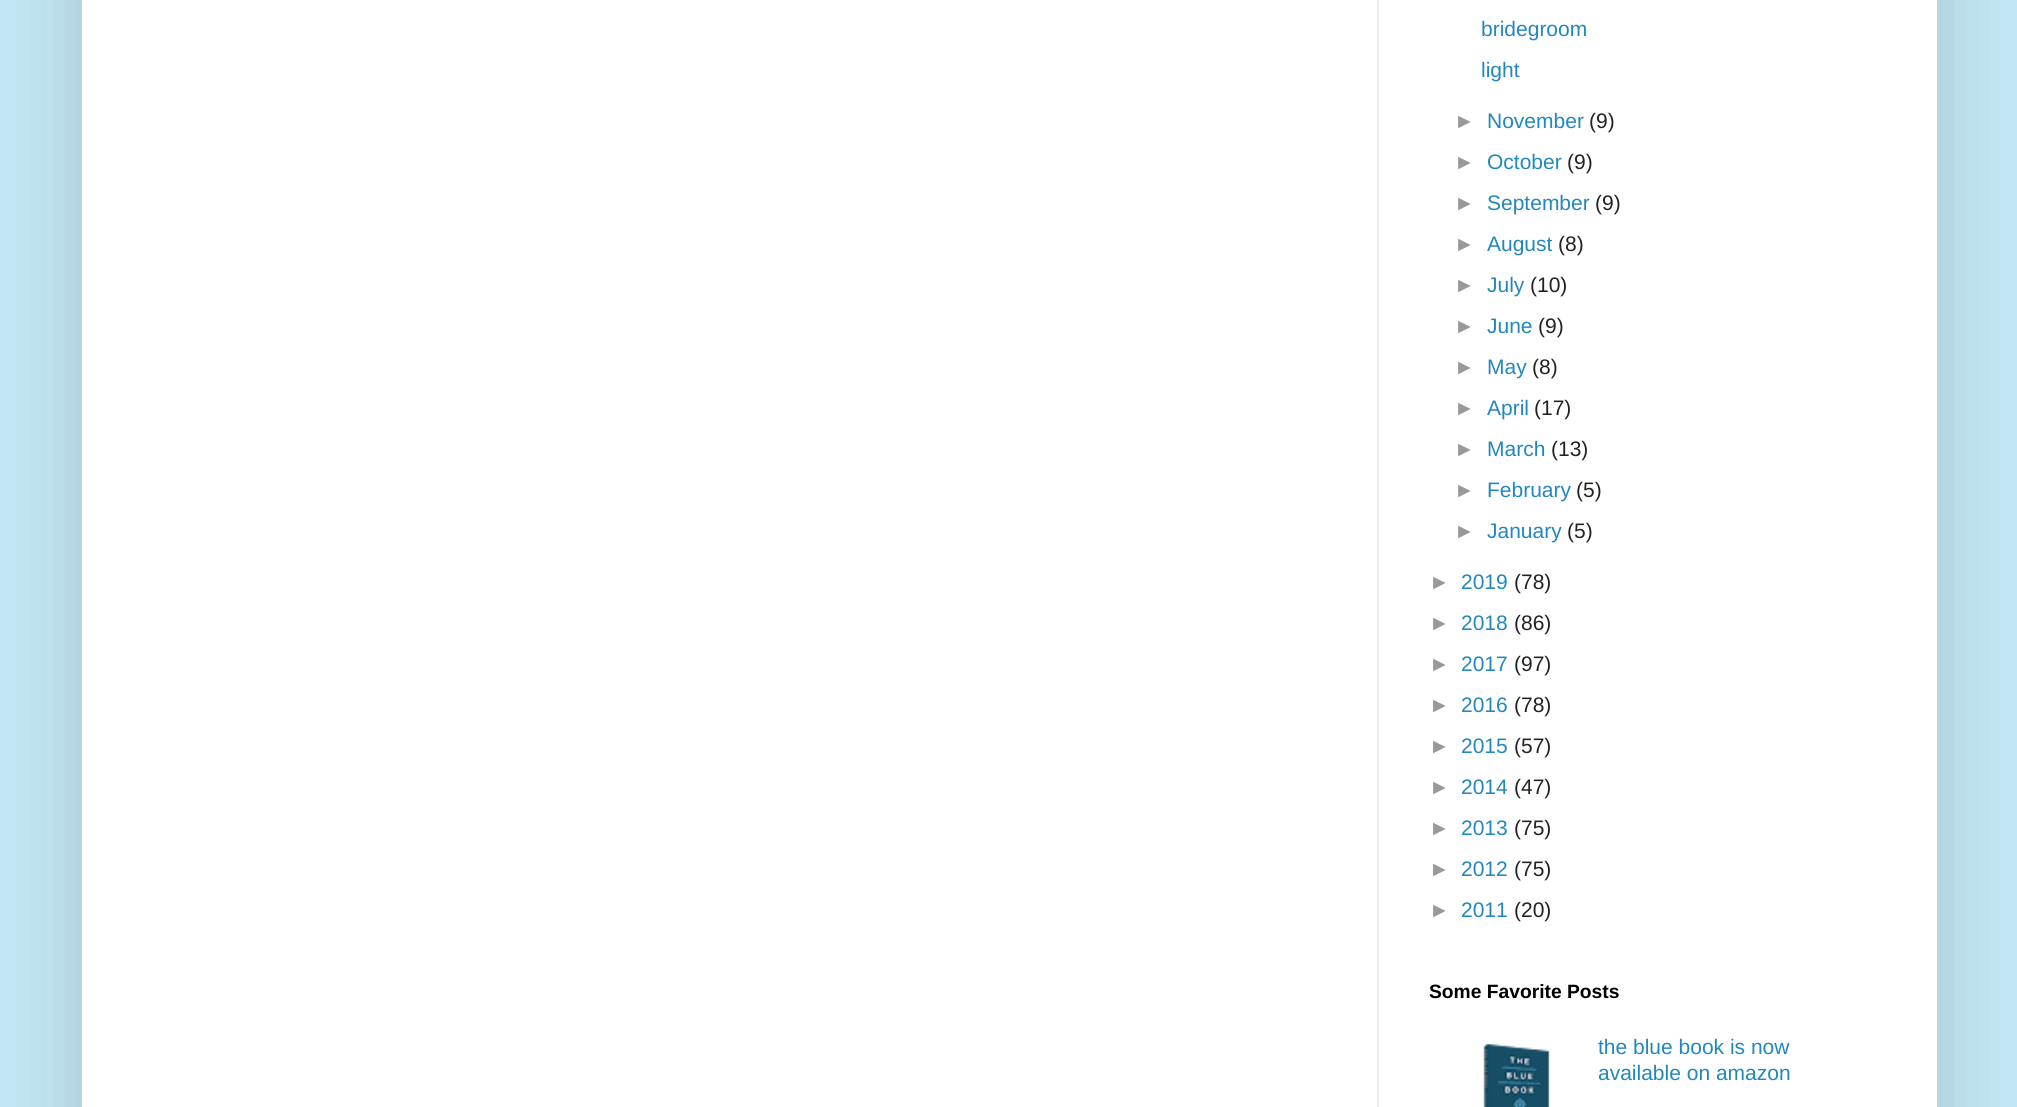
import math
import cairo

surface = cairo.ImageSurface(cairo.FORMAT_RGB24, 2017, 1107)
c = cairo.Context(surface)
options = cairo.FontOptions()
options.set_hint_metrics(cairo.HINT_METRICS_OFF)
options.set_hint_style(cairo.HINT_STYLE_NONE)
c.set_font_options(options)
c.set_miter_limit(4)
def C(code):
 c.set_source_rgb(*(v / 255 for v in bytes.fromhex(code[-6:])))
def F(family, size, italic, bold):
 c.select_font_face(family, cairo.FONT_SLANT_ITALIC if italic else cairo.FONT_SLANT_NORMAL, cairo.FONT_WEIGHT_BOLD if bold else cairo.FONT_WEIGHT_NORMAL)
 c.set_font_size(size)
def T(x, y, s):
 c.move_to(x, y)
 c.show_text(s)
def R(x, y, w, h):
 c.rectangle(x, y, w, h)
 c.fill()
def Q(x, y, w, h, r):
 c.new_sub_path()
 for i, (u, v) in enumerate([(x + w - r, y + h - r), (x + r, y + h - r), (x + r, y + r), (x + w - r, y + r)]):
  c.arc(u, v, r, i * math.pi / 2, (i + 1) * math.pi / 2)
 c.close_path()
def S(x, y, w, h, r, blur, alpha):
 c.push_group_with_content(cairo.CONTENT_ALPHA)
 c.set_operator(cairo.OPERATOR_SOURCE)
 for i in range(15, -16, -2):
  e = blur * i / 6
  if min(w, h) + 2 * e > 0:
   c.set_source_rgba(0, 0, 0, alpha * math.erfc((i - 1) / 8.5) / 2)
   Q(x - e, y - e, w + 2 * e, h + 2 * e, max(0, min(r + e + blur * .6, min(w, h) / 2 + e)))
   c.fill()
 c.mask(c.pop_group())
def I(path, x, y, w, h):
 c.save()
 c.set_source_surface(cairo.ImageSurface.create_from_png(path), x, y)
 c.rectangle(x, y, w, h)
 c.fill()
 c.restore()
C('c1e5f2')
c.paint()
C('000000')
S(82,-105,1855,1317,0,35,.15)
C('ffffff')
R(82,0,1855,1107)
C('eeeeee')
R(1377,0,2,1107)
F('Liberation Sans',21,0,0)
C('2288bb')
T(1481,36,'bridegroom')
T(1481,77,'light')
C('999999')
T(1454,128,'►')
C('2288bb')
T(1487,128,'November')
C('222222')
T(1589,128,'(9)')
C('999999')
T(1454,169,'►')
C('2288bb')
T(1487,169,'October')
C('222222')
T(1567,169,'(9)')
C('999999')
T(1454,210,'►')
C('2288bb')
T(1487,210,'September')
C('222222')
T(1595,210,'(9)')
C('999999')
T(1454,251,'►')
C('2288bb')
T(1487,251,'August')
C('222222')
T(1558,251,'(8)')
C('999999')
T(1454,292,'►')
C('2288bb')
T(1487,292,'July')
C('222222')
T(1530,292,'(10)')
C('999999')
T(1454,333,'►')
C('2288bb')
T(1487,333,'June')
C('222222')
T(1538,333,'(9)')
C('999999')
T(1454,374,'►')
C('2288bb')
T(1487,374,'May')
C('222222')
T(1532,374,'(8)')
C('999999')
T(1454,415,'►')
C('2288bb')
T(1487,415,'April')
C('222222')
T(1534,415,'(17)')
C('999999')
T(1454,456,'►')
C('2288bb')
T(1487,456,'March')
C('222222')
T(1551,456,'(13)')
C('999999')
T(1454,497,'►')
C('2288bb')
T(1487,497,'February')
C('222222')
T(1576,497,'(5)')
C('999999')
T(1454,538,'►')
C('2288bb')
T(1487,538,'January')
C('222222')
T(1567,538,'(5)')
C('999999')
T(1429,589,'►')
C('2288bb')
T(1461,589,'2019')
C('222222')
T(1514,589,'(78)')
C('999999')
T(1429,630,'►')
C('2288bb')
T(1461,630,'2018')
C('222222')
T(1514,630,'(86)')
C('999999')
T(1429,671,'►')
C('2288bb')
T(1461,671,'2017')
C('222222')
T(1514,671,'(97)')
C('999999')
T(1429,712,'►')
C('2288bb')
T(1461,712,'2016')
C('222222')
T(1514,712,'(78)')
C('999999')
T(1429,753,'►')
C('2288bb')
T(1461,753,'2015')
C('222222')
T(1514,753,'(57)')
C('999999')
T(1429,794,'►')
C('2288bb')
T(1461,794,'2014')
C('222222')
T(1514,794,'(47)')
C('999999')
T(1429,835,'►')
C('2288bb')
T(1461,835,'2013')
C('222222')
T(1514,835,'(75)')
C('999999')
T(1429,876,'►')
C('2288bb')
T(1461,876,'2012')
C('222222')
T(1514,876,'(75)')
C('999999')
T(1429,917,'►')
C('2288bb')
T(1461,917,'2011')
C('222222')
T(1514,917,'(20)')
F('Liberation Sans',19.25,0,1)
C('000000')
T(1429,998,'Some Favorite Posts')
I('1.png',1483,1043,67,64)
F('Liberation Sans',21,0,0)
C('2288bb')
T(1598,1054,'the blue book is now')
T(1598,1080,'available on amazon')
surface.write_to_png('o.png')
